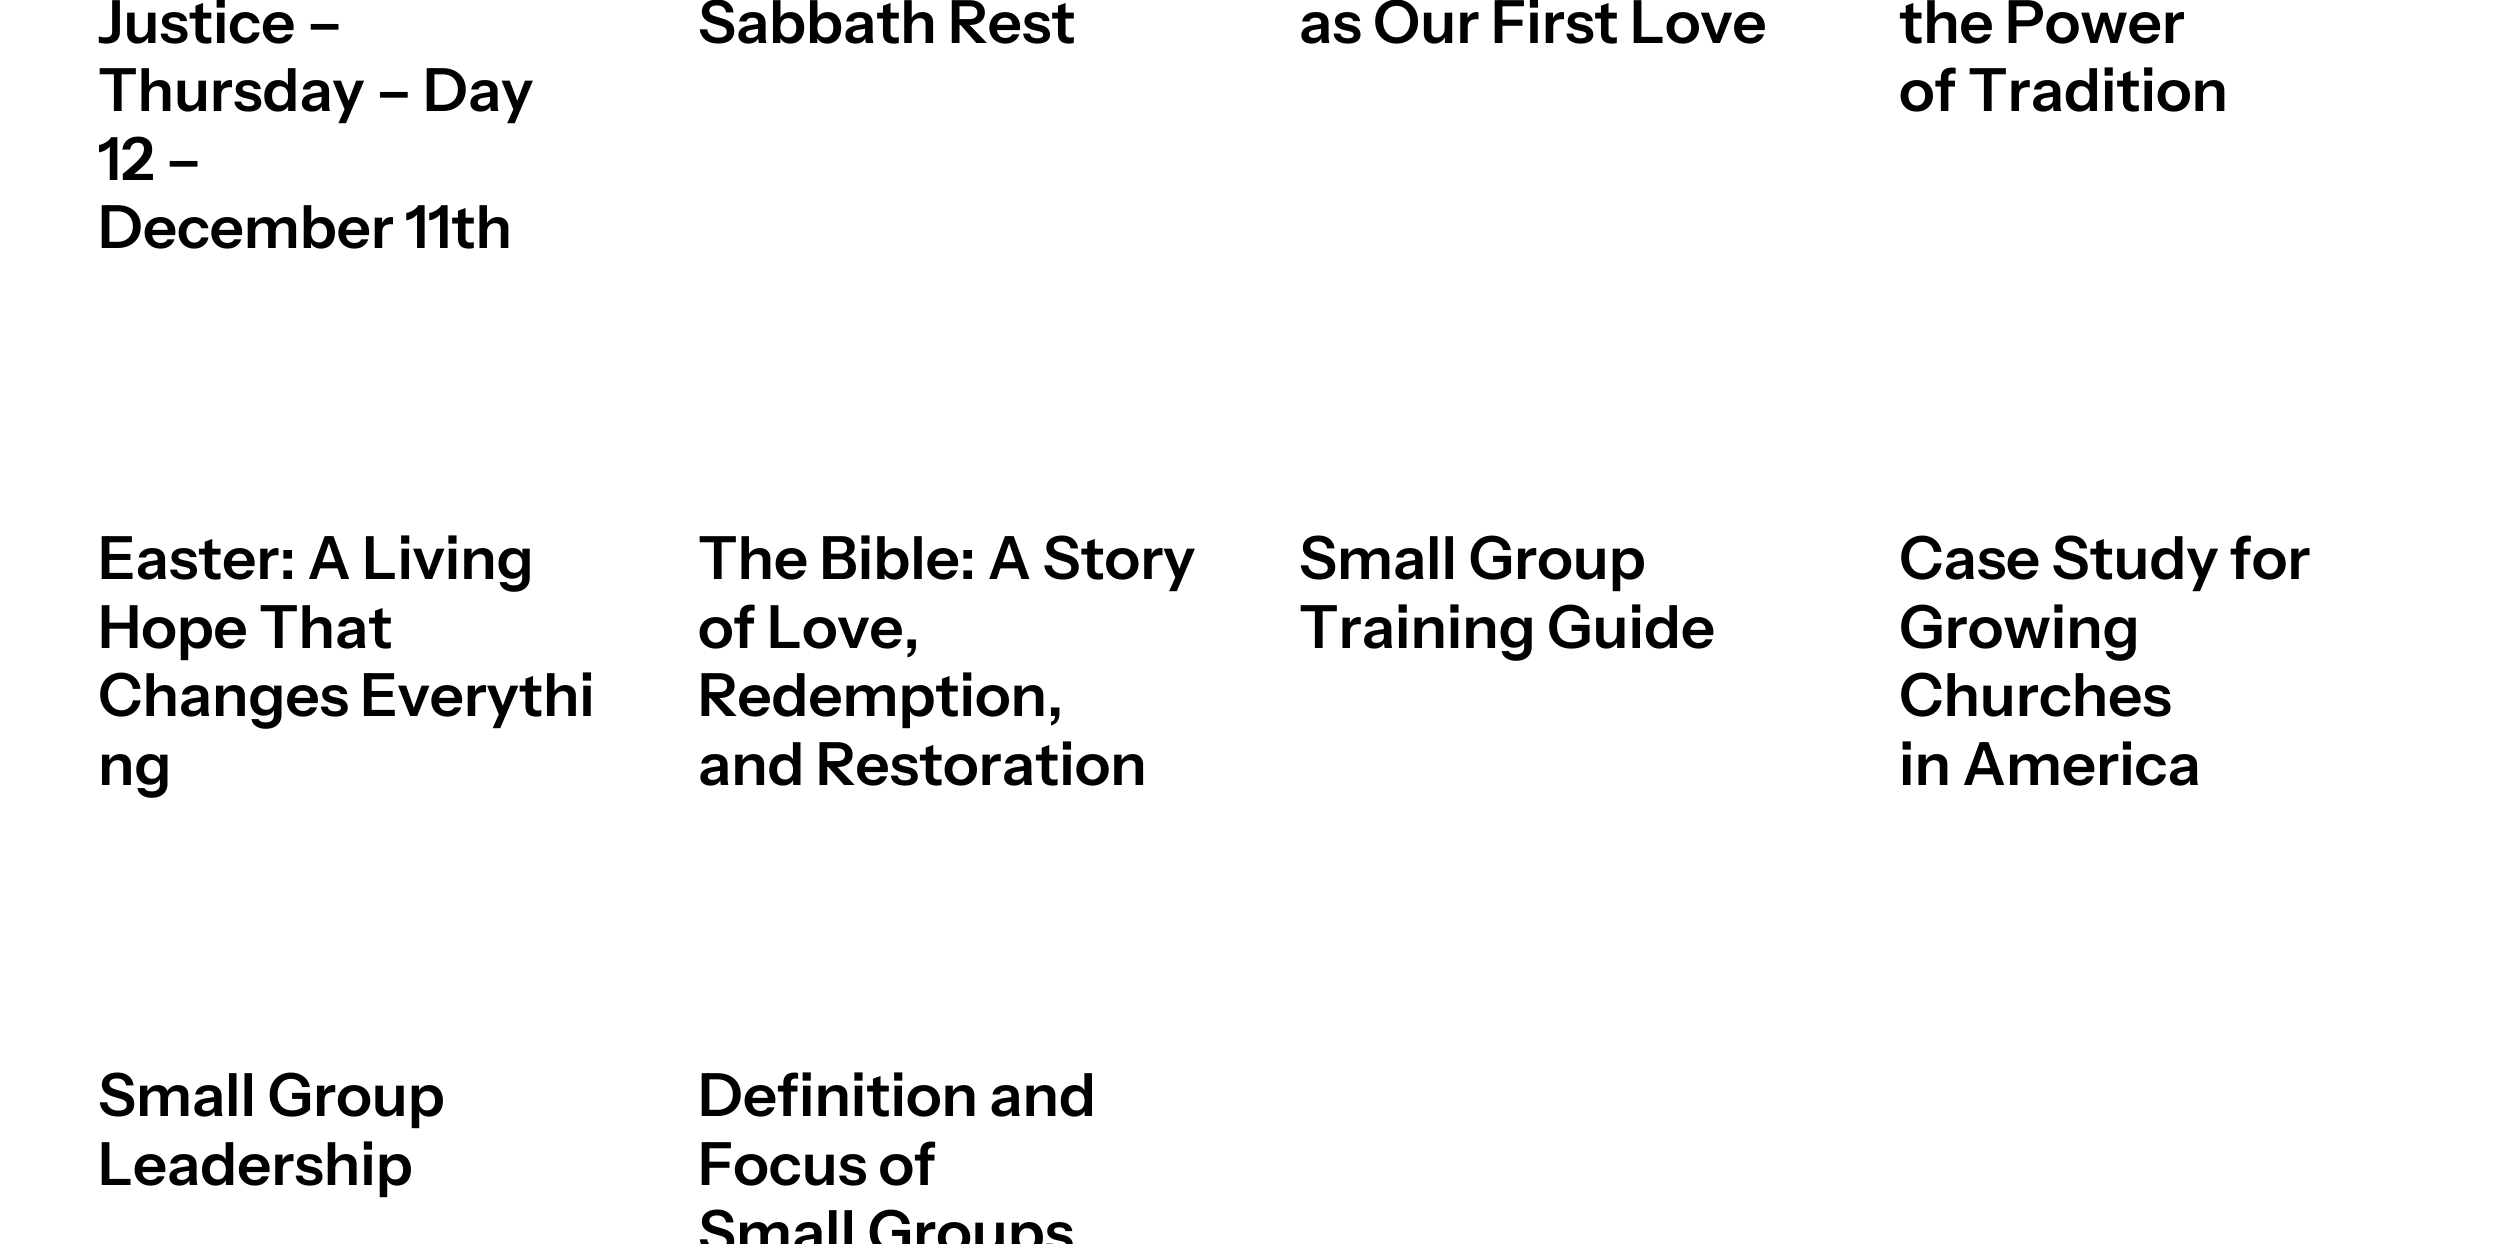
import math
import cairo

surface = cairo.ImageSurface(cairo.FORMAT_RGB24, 2498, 1244)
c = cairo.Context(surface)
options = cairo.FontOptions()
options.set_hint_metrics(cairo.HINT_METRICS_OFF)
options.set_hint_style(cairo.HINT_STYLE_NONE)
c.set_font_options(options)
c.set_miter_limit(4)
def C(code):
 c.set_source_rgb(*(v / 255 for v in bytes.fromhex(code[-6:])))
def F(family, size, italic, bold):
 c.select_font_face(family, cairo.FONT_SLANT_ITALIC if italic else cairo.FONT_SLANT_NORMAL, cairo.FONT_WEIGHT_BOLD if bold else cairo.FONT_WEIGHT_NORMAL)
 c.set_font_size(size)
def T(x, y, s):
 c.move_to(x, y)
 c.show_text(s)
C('ffffff')
c.paint()
F('Instrument Sans SemiBold',59.5,0,0)
C('000000')
T(98,43,'Justice –')
T(98,111,'Thursday – Day')
T(98,180,'12 –')
T(98,248,'December 11th')
T(698,43,'Sabbath Rest')
T(1299,43,'as Our First Love')
T(1899,43,'the Power')
T(1899,111,'of Tradition')
T(98,579,'Easter: A Living')
T(98,648,'Hope That')
T(98,716,'Changes Everythi')
T(98,785,'ng')
T(698,579,'The Bible: A Story')
T(698,648,'of Love,')
T(698,716,'Redemption,')
T(698,785,'and Restoration')
T(1299,579,'Small Group')
T(1299,648,'Training Guide')
T(1899,579,'Case Study for')
T(1899,648,'Growing')
T(1899,716,'Churches')
T(1899,785,'in America')
T(98,1116,'Small Group')
T(98,1185,'Leadership')
T(698,1116,'Definition and')
T(698,1185,'Focus of')
T(698,1253,'Small Groups')
surface.write_to_png('o.png')
